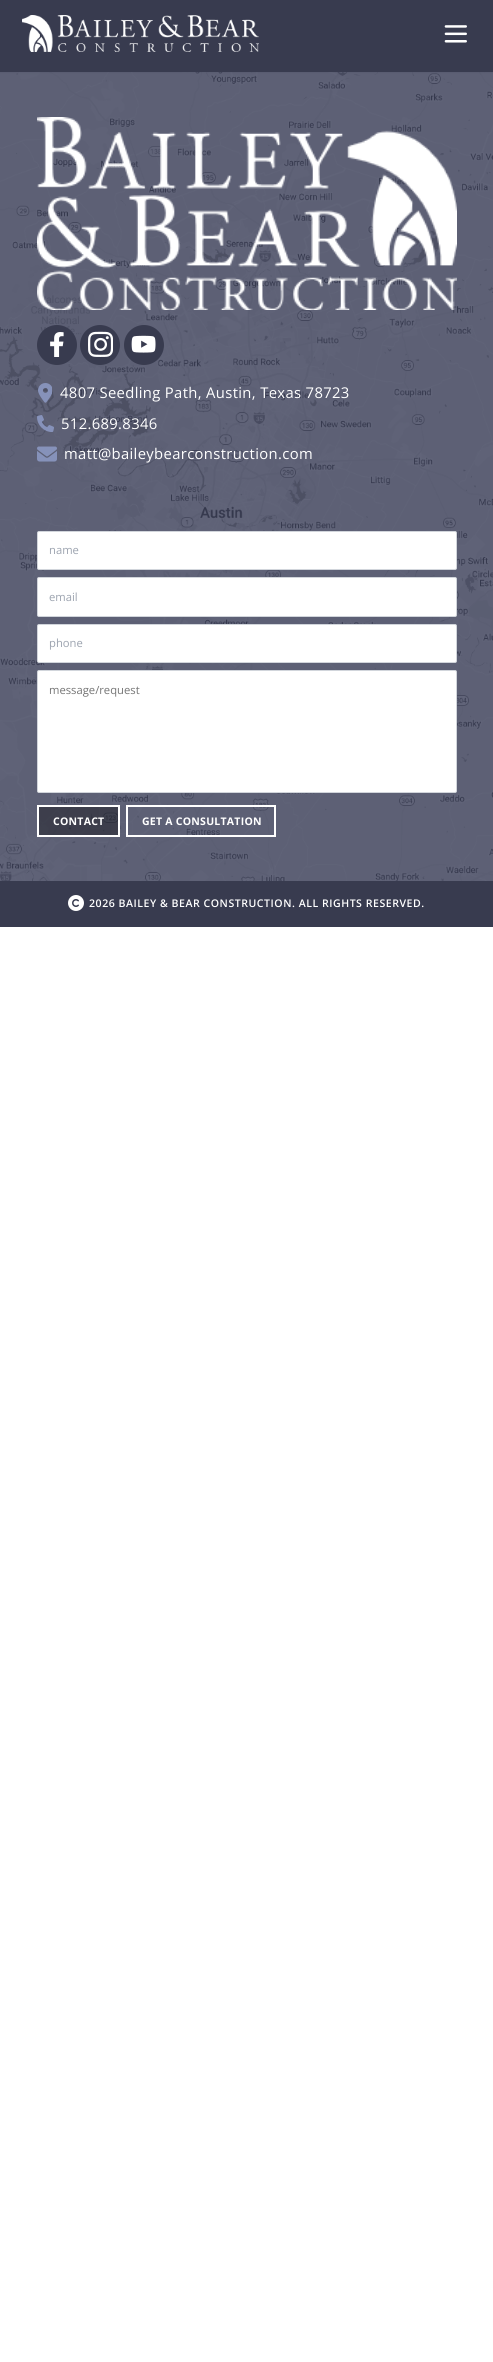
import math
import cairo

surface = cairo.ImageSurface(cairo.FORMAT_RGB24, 493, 2362)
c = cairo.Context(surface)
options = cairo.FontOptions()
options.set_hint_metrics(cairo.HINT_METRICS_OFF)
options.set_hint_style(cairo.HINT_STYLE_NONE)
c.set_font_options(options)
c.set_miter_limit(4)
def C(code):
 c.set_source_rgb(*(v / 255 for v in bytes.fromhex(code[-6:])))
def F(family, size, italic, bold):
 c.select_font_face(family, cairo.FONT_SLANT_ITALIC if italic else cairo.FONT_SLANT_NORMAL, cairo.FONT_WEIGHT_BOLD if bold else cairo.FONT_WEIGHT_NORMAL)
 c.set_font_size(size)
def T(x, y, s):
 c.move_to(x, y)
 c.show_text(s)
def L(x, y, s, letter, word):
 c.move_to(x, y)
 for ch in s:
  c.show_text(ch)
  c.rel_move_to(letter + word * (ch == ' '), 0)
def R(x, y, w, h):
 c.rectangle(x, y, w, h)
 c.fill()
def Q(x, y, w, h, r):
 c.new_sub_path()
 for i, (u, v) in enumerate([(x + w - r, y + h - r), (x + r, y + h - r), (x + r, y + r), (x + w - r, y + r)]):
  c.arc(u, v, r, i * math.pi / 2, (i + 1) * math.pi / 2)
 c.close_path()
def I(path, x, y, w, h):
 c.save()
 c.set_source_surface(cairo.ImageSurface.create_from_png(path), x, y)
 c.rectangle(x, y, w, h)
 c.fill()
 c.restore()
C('ffffff')
c.paint()
C('383b4f')
R(0,0,493,72)
I('1.png',22,15,237,37)
I('2.png',444,25,23,18)
I('3.png',0,72,493,809)
I('4.png',37,117,420,193)
c.arc(57,345,20,0,2 * math.pi)
c.fill()
I('5.png',50,332,14,25)
c.arc(100,345,20,0,2 * math.pi)
c.fill()
I('6.png',88,331,25,26)
c.arc(144,345,20,0,2 * math.pi)
c.fill()
I('7.png',131,335,25,18)
I('8.png',38,383,14,20)
F('Open Sans',14.8,0,0)
C('ffffff')
L(60,398,'4807 Seedling Path, Austin, Texas 78723',.35,0)
I('9.png',37,415,17,17)
L(61,429,'512.689.8346',.35,0)
I('10.png',37,446,20,16)
L(64,459,'matt@baileybearconstruction.com',.35,0)
Q(37.5,531.5,419,38,1.5)
c.fill_preserve()
C('d1d5db')
c.set_line_width(1)
c.stroke()
F('Open Sans',11.25,0,0)
C('9ca3af')
T(49,554,'name')
C('ffffff')
Q(37.5,577.5,419,39,1.5)
c.fill_preserve()
C('d1d5db')
c.stroke()
C('9ca3af')
T(49,601,'email')
C('ffffff')
Q(37.5,624.5,419,38,1.5)
c.fill_preserve()
C('d1d5db')
c.stroke()
C('9ca3af')
T(49,647,'phone')
C('ffffff')
Q(37.5,670.5,419,122,1.5)
c.fill_preserve()
C('d1d5db')
c.stroke()
C('757575')
T(49,694,'message/request')
c.set_source_rgba(0,0,0,0.35)
c.rectangle(38,806,81,30)
c.fill_preserve()
C('ffffff')
c.set_line_width(2)
c.stroke()
F('Open Sans',10.5,0,1)
L(53,825,'CONTACT',.25,0)
c.rectangle(127,806,148,30)
c.stroke()
L(142,825,'GET A CONSULTATION',.25,0)
C('383b4f')
R(0,881,493,46)
I('11.png',68,895,16,16)
F('Open Sans SemiBold',10.55,0,0)
C('ffffff')
L(89,907,'2026 BAILEY & BEAR CONSTRUCTION. ALL RIGHTS RESERVED.',.53,0)
surface.write_to_png('o.png')
